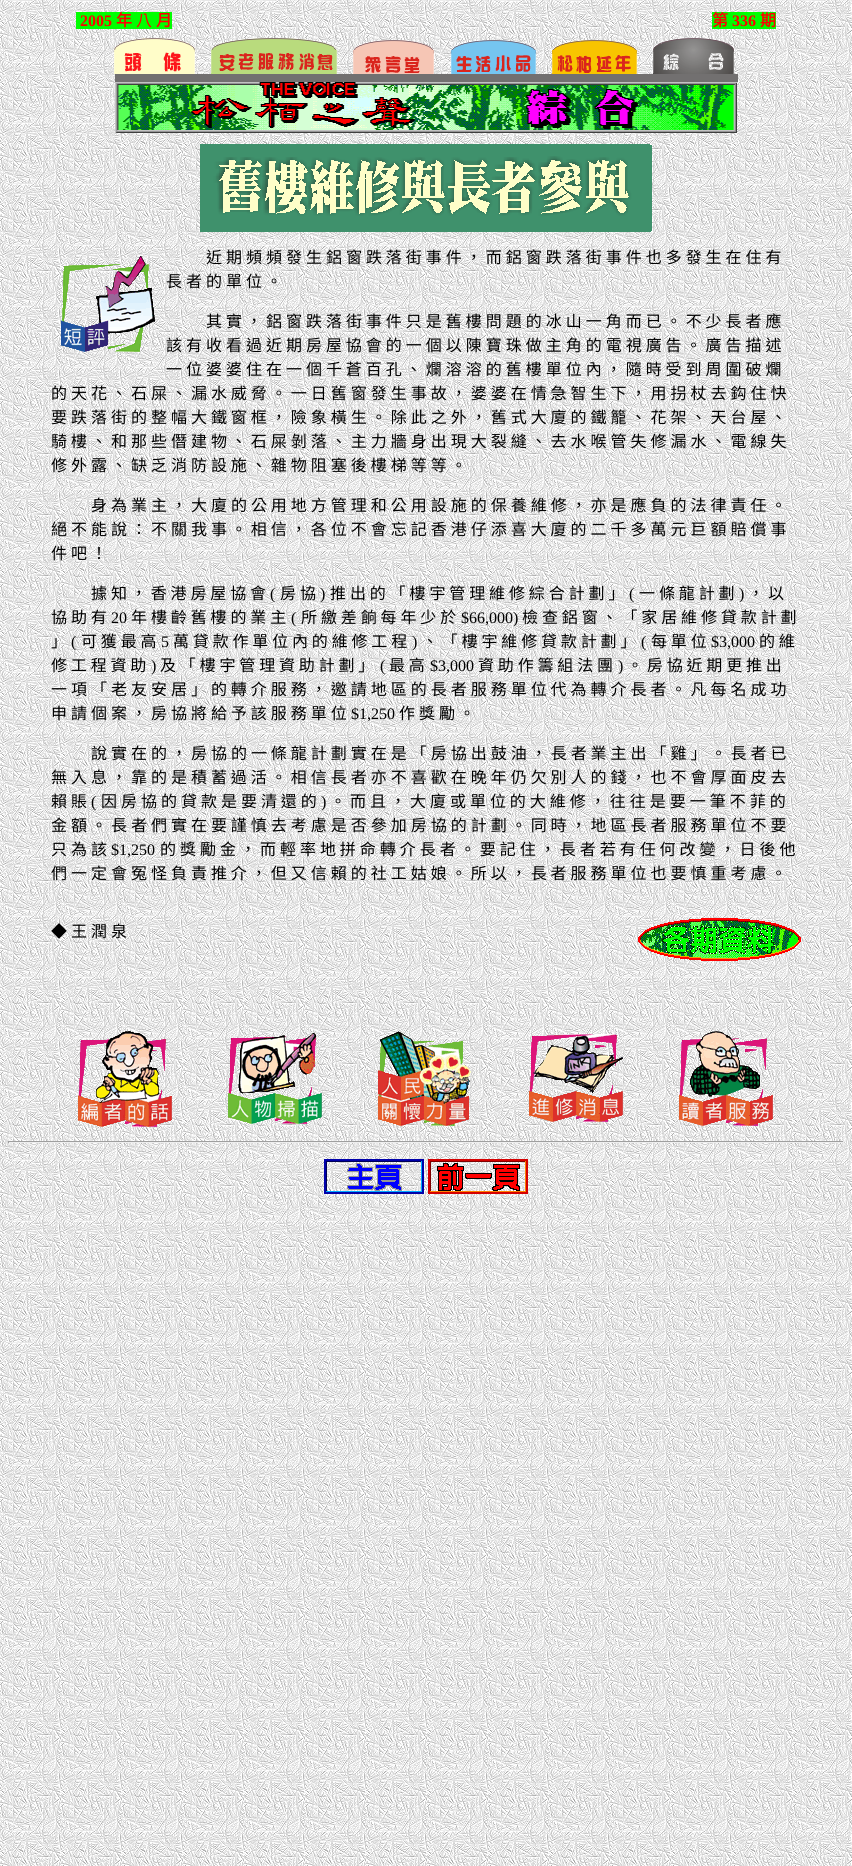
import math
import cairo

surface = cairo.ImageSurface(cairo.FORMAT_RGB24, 852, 1866)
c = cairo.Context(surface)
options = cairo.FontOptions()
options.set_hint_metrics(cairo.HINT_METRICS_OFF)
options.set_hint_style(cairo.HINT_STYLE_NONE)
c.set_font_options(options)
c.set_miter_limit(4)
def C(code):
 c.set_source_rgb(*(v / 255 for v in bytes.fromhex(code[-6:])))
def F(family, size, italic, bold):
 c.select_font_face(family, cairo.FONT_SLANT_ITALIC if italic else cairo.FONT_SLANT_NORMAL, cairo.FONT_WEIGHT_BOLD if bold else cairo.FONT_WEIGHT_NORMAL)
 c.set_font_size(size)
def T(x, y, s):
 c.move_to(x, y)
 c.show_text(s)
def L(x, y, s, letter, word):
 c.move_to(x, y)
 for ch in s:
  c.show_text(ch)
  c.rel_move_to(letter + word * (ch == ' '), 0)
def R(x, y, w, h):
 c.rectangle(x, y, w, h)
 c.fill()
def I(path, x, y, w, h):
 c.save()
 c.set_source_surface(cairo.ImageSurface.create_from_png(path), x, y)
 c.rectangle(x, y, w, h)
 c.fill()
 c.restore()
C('ffffff')
c.paint()
I('1.png',0,0,852,1866)
C('00ff00')
R(76,12,96,17)
F('Liberation Serif',16,0,1)
C('ff0000')
T(80,26,'2005')
F('Noto Sans CJK TC',16,0,1)
T(116,26,'年')
F('Noto Sans CJK TC',16,0,0)
T(136,26,'八')
F('Noto Sans CJK TC',16,0,1)
T(156,26,'月')
C('00ff00')
R(712,12,64,17)
C('ff0000')
T(712,26,'第')
F('Liberation Serif',16,0,1)
T(732,26,'336')
F('Noto Sans CJK TC',16,0,1)
T(760,26,'期')
I('2.png',114,38,81,36)
I('3.png',211,38,126,36)
I('4.png',353,40,81,34)
I('5.png',451,40,85,34)
I('6.png',552,40,85,34)
I('7.png',653,38,81,36)
C('727070')
R(115,74,623,8)
I('8.png',115,82,622,51)
I('9.png',200,144,452,88)
I('10.png',61,256,94,96)
F('Noto Sans CJK TC',16,0,0)
C('000000')
L(206,263,'近 期 頻 頻 發 生 鋁 窗 跌 落 街 事 件 ， 而 鋁 窗 跌 落 街 事 件 也 多 發 生 在 住 有',0,.4)
L(166,287,'長 者 的 單 位 。',0,.4)
L(206,327,'其 實 ， 鋁 窗 跌 落 街 事 件 只 是 舊 樓 問 題 的 冰 山 一 角 而 已 。 不 少 長 者 應',0,.4)
L(166,351,'該 有 收 看 過 近 期 房 屋 協 會 的 一 個 以 陳 寶 珠 做 主 角 的 電 視 廣 告 。 廣 告 描 述',0,.4)
L(166,375,'一 位 婆 婆 住 在 一 個 千 蒼 百 孔 、 爛 溶 溶 的 舊 樓 單 位 內 ， 隨 時 受 到 周 圍 破 爛',0,.4)
L(51,399,'的 天 花 、 石 屎 、 漏 水 威 脅 。 一 日 舊 窗 發 生 事 故 ， 婆 婆 在 情 急 智 生 下 ， 用 拐 杖 去 鈎 住 快',0,.4)
L(51,423,'要 跌 落 街 的 整 幅 大 鐵 窗 框 ， 險 象 橫 生 。 除 此 之 外 ， 舊 式 大 廈 的 鐵 籠 、 花 架 、 天 台 屋 、',0,.4)
L(51,447,'騎 樓 、 和 那 些 僭 建 物 、 石 屎 剝 落 、 主 力 牆 身 出 現 大 裂 縫 、 去 水 喉 管 失 修 漏 水 、 電 線 失',0,.4)
L(51,471,'修 外 露 、 缺 乏 消 防 設 施 、 雜 物 阻 塞 後 樓 梯 等 等 。',0,.4)
L(91,511,'身 為 業 主 ， 大 廈 的 公 用 地 方 管 理 和 公 用 設 施 的 保 養 維 修 ， 亦 是 應 負 的 法 律 責 任 。',0,.4)
L(51,535,'絕 不 能 說 ： 不 關 我 事 。 相 信 ， 各 位 不 會 忘 記 香 港 仔 添 喜 大 廈 的 二 千 多 萬 元 巨 額 賠 償 事',0,.4)
L(51,559,'件 吧 ！',0,.4)
L(91,599,'據 知 ， 香 港 房 屋 協 會',0,.3)
F('Liberation Serif',16,0,0)
T(270,599,'(')
F('Noto Sans CJK TC',16,0,0)
L(280,599,'房 協',0,.3)
F('Liberation Serif',16,0,0)
T(320,599,')')
F('Noto Sans CJK TC',16,0,0)
L(330,599,'推 出 的 「 樓 宇 管 理 維 修 綜 合 計 劃 」',0,.3)
F('Liberation Serif',16,0,0)
T(629,599,'(')
F('Noto Sans CJK TC',16,0,0)
L(639,599,'一 條 龍 計 劃',0,.3)
F('Liberation Serif',16,0,0)
T(739,599,')')
F('Noto Sans CJK TC',16,0,0)
L(748,599,'， 以',0,.3)
L(51,623,'協 助 有',0,.3)
F('Liberation Serif',16,0,0)
T(111,623,'20')
F('Noto Sans CJK TC',16,0,0)
L(131,623,'年 樓 齡 舊 樓 的 業 主',0,.3)
F('Liberation Serif',16,0,0)
T(291,623,'(')
F('Noto Sans CJK TC',16,0,0)
L(301,623,'所 繳 差 餉 每 年 少 於',0,.3)
F('Liberation Serif',16,0,0)
T(461,623,'$66,000)')
F('Noto Sans CJK TC',16,0,0)
L(522,623,'檢 查 鋁 窗 、 「 家 居 維 修 貸 款 計 劃',0,.3)
T(51,647,'」')
F('Liberation Serif',16,0,0)
T(71,647,'(')
F('Noto Sans CJK TC',16,0,0)
L(81,647,'可 獲 最 高',0,.25)
F('Liberation Serif',16,0,0)
T(161,647,'5')
F('Noto Sans CJK TC',16,0,0)
L(173,647,'萬 貸 款 作 單 位 內 的 維 修 工 程',0,.25)
F('Liberation Serif',16,0,0)
T(412,647,')')
F('Noto Sans CJK TC',16,0,0)
L(422,647,'、 「 樓 宇 維 修 貸 款 計 劃 」',0,.25)
F('Liberation Serif',16,0,0)
T(641,647,'(')
F('Noto Sans CJK TC',16,0,0)
L(651,647,'每 單 位',0,.25)
F('Liberation Serif',16,0,0)
T(711,647,'$3,000')
F('Noto Sans CJK TC',16,0,0)
L(759,647,'的 維',0,.25)
L(51,671,'修 工 程 資 助',0,.25)
F('Liberation Serif',16,0,0)
T(151,671,')')
F('Noto Sans CJK TC',16,0,0)
L(160,671,'及 「 樓 宇 管 理 資 助 計 劃 」',0,.25)
F('Liberation Serif',16,0,0)
T(380,671,'(')
F('Noto Sans CJK TC',16,0,0)
L(389,671,'最 高',0,.25)
F('Liberation Serif',16,0,0)
T(430,671,'$3,000')
F('Noto Sans CJK TC',16,0,0)
L(478,671,'資 助 作 籌 組 法 團',0,.25)
F('Liberation Serif',16,0,0)
T(618,671,')')
F('Noto Sans CJK TC',16,0,0)
L(627,671,'。 房 協 近 期 更 推 出',0,.25)
L(51,695,'一 項 「 老 友 安 居 」 的 轉 介 服 務 ， 邀 請 地 區 的 長 者 服 務 單 位 代 為 轉 介 長 者 。 凡 每 名 成 功',0,.4)
L(51,719,'申 請 個 案 ， 房 協 將 給 予 該 服 務 單 位',0,.4)
F('Liberation Serif',16,0,0)
T(351,719,'$1,250')
F('Noto Sans CJK TC',16,0,0)
L(399,719,'作 獎 勵 。',0,.4)
L(91,759,'說 實 在 的 ， 房 協 的 一 條 龍 計 劃 實 在 是 「 房 協 出 鼓 油 ， 長 者 業 主 出 「 雞 」 。 長 者 已',0,.4)
L(51,783,'無 入 息 ， 靠 的 是 積 蓄 過 活 。 相 信 長 者 亦 不 喜 歡 在 晚 年 仍 欠 別 人 的 錢 ， 也 不 會 厚 面 皮 去',0,.4)
L(51,807,'賴 賬',0,.4)
F('Liberation Serif',16,0,0)
T(91,807,'(')
F('Noto Sans CJK TC',16,0,0)
L(101,807,'因 房 協 的 貸 款 是 要 清 還 的',0,.4)
F('Liberation Serif',16,0,0)
T(321,807,')')
F('Noto Sans CJK TC',16,0,0)
L(330,807,'。 而 且 ， 大 廈 或 單 位 的 大 維 修 ， 往 往 是 要 一 筆 不 菲 的',0,.4)
L(51,831,'金 額 。 長 者 們 實 在 要 謹 慎 去 考 慮 是 否 參 加 房 協 的 計 劃 。 同 時 ， 地 區 長 者 服 務 單 位 不 要',0,.4)
L(51,855,'只 為 該',0,.4)
F('Liberation Serif',16,0,0)
T(111,855,'$1,250')
F('Noto Sans CJK TC',16,0,0)
L(160,855,'的 獎 勵 金 ， 而 輕 率 地 拼 命 轉 介 長 者 。 要 記 住 ， 長 者 若 有 任 何 改 變 ， 日 後 他',0,.4)
L(51,879,'們 一 定 會 冤 怪 負 責 推 介 ， 但 又 信 賴 的 社 工 姑 娘 。 所 以 ， 長 者 服 務 單 位 也 要 慎 重 考 慮 。',0,.4)
L(51,937,'◆ 王 潤 泉',0,.4)
I('11.png',638,918,163,43)
I('12.png',78,1031,94,96)
I('13.png',228,1033,94,91)
I('14.png',378,1031,93,95)
I('15.png',529,1034,94,88)
I('16.png',679,1031,94,95)
C('9f9f9f')
R(8,1141,836,1)
C('eeeeee')
R(843,1141,1,2)
R(8,1142,836,1)
C('9f9f9f')
R(8,1141,1,2)
I('17.png',324,1159,100,35)
I('18.png',428,1159,100,35)
surface.write_to_png('o.png')
